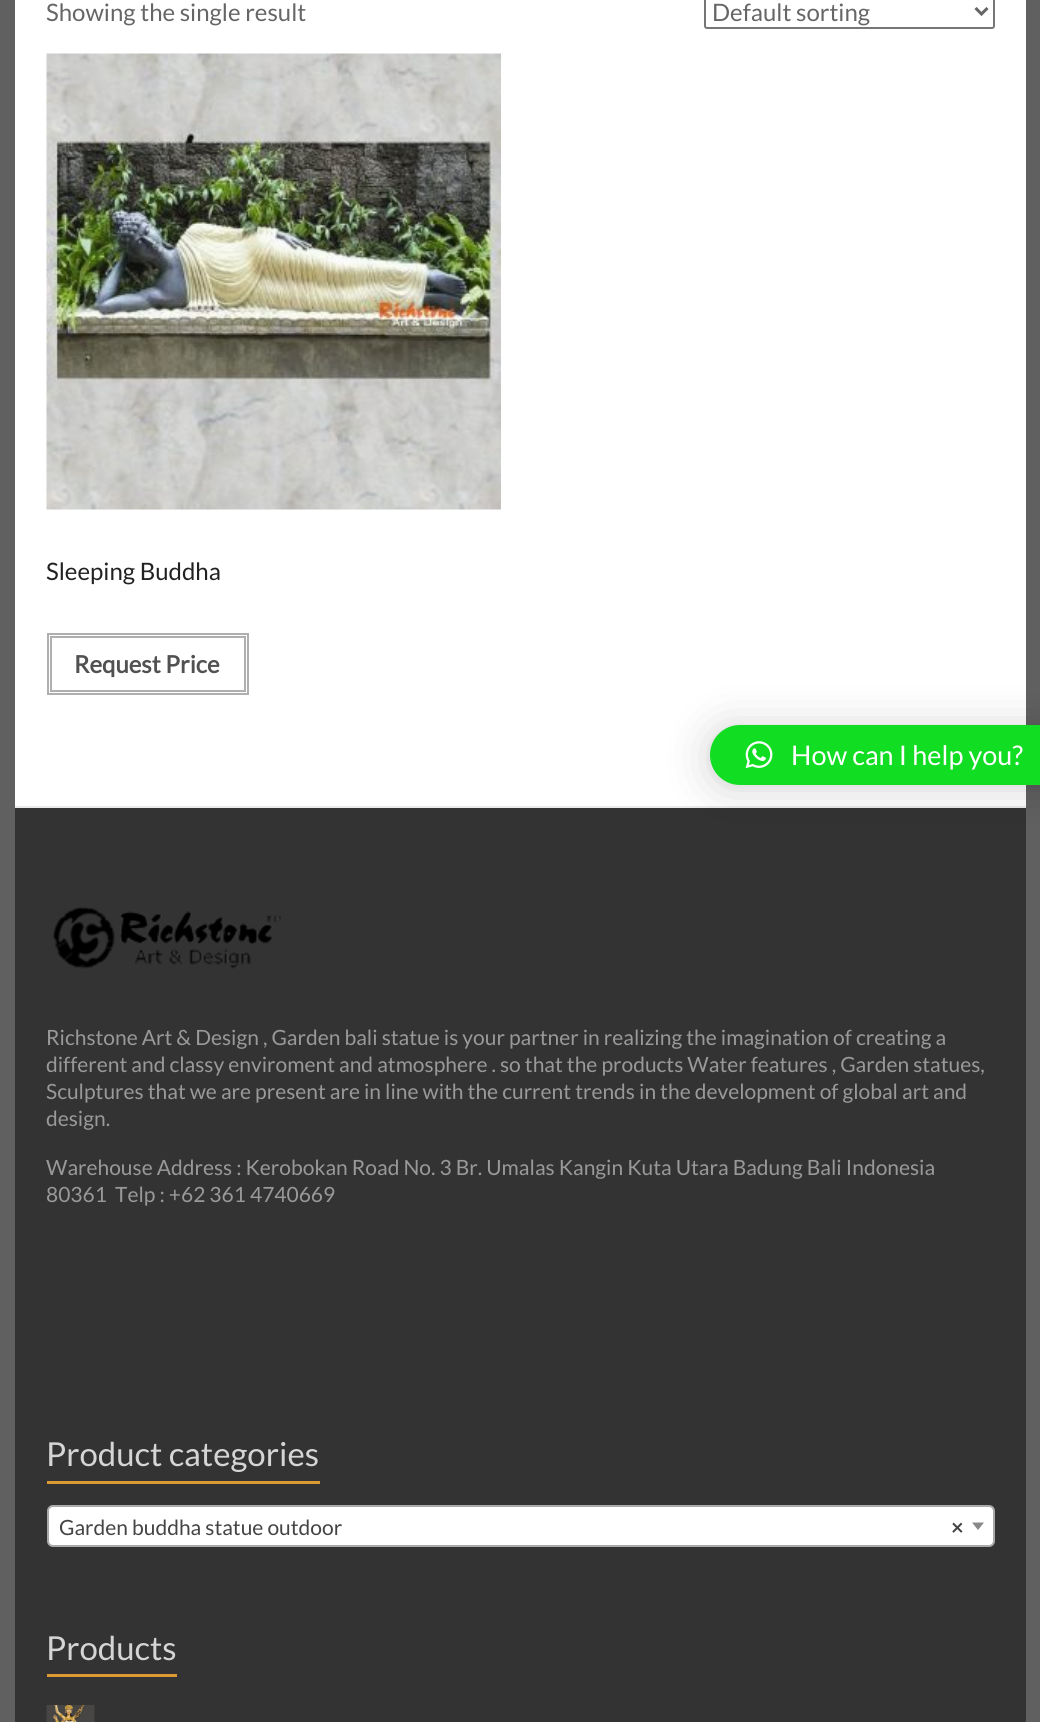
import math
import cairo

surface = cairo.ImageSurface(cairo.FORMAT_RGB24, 1040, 1722)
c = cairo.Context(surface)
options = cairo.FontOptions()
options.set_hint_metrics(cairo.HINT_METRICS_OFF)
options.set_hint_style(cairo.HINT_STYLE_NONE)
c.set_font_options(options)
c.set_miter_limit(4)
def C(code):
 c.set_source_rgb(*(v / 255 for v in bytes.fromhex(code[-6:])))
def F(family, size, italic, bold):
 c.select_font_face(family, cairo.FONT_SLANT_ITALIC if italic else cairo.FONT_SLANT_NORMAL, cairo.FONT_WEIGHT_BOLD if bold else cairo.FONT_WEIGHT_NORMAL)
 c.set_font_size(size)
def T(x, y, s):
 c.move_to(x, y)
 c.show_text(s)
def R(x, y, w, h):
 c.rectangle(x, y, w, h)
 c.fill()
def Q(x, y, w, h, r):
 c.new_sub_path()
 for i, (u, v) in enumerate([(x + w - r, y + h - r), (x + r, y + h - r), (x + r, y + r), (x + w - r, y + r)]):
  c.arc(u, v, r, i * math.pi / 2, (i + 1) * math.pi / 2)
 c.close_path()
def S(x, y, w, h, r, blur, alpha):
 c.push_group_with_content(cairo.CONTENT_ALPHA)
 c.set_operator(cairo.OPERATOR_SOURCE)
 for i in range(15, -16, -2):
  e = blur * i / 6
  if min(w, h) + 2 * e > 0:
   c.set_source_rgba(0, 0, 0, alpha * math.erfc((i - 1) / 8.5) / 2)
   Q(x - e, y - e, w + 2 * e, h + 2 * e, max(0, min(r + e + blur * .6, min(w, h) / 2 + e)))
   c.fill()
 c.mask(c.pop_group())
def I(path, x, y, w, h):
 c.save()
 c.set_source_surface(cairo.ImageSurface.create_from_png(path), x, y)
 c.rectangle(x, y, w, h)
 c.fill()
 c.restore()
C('606060')
c.paint()
C('ffffff')
R(15,0,1011,806)
F('Lato',24,0,0)
C('666666')
T(46,21,'Showing the single result')
Q(705,-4,289,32,2)
C('767676')
c.stroke()
c.new_path()
c.move_to(975.5,8)
c.line_to(981.5,14)
c.line_to(987.5,8)
C('666666')
c.set_line_width(3)
c.stroke()
T(712,21,'Default sorting')
I('1.png',46,53,455,457)
C('222222')
T(46,580,'Sleeping Buddha')
c.rectangle(48,634,200,60)
C('afafaf')
c.set_line_width(2)
c.stroke()
c.rectangle(51,637,194,54)
c.stroke()
F('Lato',24,0,1)
C('515151')
T(74,673,'Request Price')
C('333333')
R(15,808,1011,914)
C('eaeaea')
R(15,806,1011,2)
I('2.png',53,907,228,62)
F('Lato',21,0,0)
C('999999')
T(46,1045,'Richstone Art & Design , Garden bali statue is your partner in realizing the imagination of creating a')
T(46,1072,'different and classy enviroment and atmosphere . so that the products Water features , Garden statues,')
T(46,1099,'Sculptures that we are present are in line with the current trends in the development of global art and')
T(46,1126,'design.')
T(46,1175,'Warehouse Address : Kerobokan Road No. 3 Br. Umalas Kangin Kuta Utara Badung Bali Indonesia')
T(46,1202,'80361  Telp : +62 361 4740669')
F('Lato',33,0,0)
C('d5d5d5')
T(46,1466,'Product categories')
C('dd9933')
R(47,1481,273,3)
C('ffffff')
Q(48,1506,946,40,5)
c.fill_preserve()
C('aaaaaa')
c.stroke()
F('Lato',21,0,0)
C('444444')
T(59,1535,'Garden buddha statue outdoor')
F('Lato',21,0,1)
T(951,1535,'×')
C('888888')
c.new_path()
c.move_to(972,1522.5)
c.line_to(984,1522.5)
c.line_to(978,1530)
c.close_path()
c.fill()
F('Lato',33,0,0)
C('d5d5d5')
T(46,1660,'Products')
C('dd9933')
R(47,1674,130,3)
I('3.png',46,1705,49,17)
C('000000')
S(710,728,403,60,30,24,.16)
S(710,726,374,60,30,4.5,.06)
C('11dd22')
Q(710,725,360,60,30)
c.fill()
I('4.png',745,741,28,28)
F('Lato',27,0,0)
C('ffffff')
T(791,765,'How can I help you?')
surface.write_to_png('o.png')
